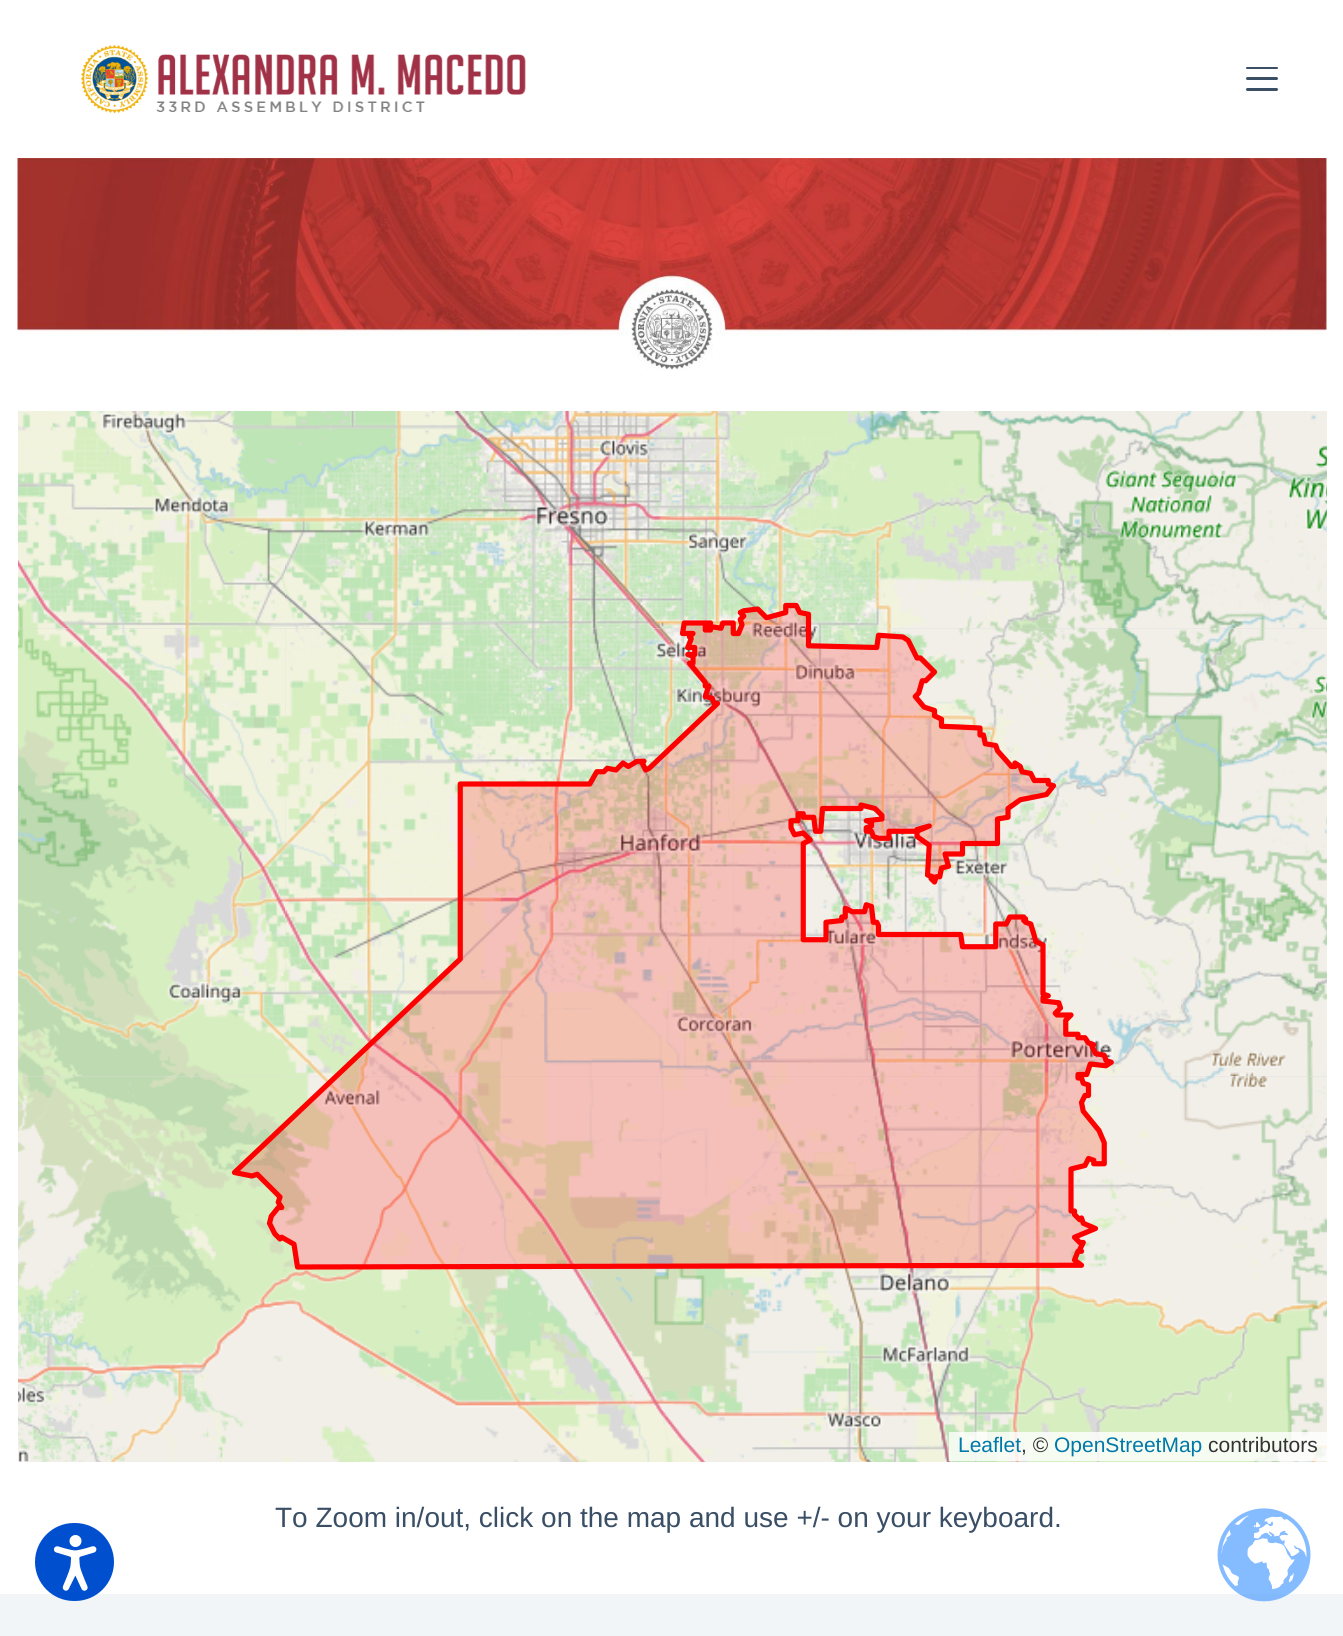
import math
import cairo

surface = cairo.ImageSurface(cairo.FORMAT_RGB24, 1343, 1636)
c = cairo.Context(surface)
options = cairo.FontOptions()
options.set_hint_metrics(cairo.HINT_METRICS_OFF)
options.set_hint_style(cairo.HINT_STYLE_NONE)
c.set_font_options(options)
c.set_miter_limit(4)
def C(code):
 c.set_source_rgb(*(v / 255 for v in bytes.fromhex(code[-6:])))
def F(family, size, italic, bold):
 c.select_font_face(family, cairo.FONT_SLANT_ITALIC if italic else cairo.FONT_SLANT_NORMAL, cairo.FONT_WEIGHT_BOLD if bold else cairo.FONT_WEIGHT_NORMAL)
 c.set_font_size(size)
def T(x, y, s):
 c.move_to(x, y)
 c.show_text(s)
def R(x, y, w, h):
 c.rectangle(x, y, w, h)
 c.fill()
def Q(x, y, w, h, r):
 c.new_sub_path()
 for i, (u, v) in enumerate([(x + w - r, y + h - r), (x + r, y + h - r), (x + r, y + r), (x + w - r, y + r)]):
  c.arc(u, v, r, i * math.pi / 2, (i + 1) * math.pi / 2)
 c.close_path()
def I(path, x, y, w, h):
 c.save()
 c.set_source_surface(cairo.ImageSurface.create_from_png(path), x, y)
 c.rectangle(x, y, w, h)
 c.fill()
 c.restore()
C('ffffff')
c.paint()
I('1.png',80,44,446,70)
C('3a4f66')
Q(1246,67,32,2,1)
c.fill()
Q(1246,77,32,3,1.5)
c.fill()
Q(1246,88,32,3,1.5)
c.fill()
I('2.png',17,158,1310,212)
C('dddddd')
R(18,628,1309,449)
I('3.png',18,411,267,217)
I('4.png',285,411,448,217)
I('5.png',733,411,448,217)
I('6.png',1181,411,146,217)
I('7.png',18,628,267,448)
I('8.png',285,628,449,449)
I('9.png',733,628,449,449)
I('10.png',1181,628,146,448)
I('11.png',18,1076,267,386)
I('12.png',285,1075,448,387)
I('13.png',733,1076,448,386)
I('14.png',1181,1075,146,387)
I('15.png',231,602,883,668)
c.set_source_rgba(1,1,1,0.8)
R(949,1432,378,29)
F('Liberation Sans',21,0,0)
C('0078a8')
T(958,1452,'Leaflet')
C('333333')
T(1021,1452,', ©')
C('0078a8')
T(1054,1452,'OpenStreetMap')
C('333333')
T(1208,1452,'contributors')
F('Liberation Sans',28,0,0)
C('3a4f66')
T(275,1527,'To Zoom in/out, click on the map and use +/- on your keyboard.')
C('f2f5f7')
R(0,1594,1343,42)
I('16.png',1217,1508,94,94)
C('004fce')
Q(35,1523,79,78,39)
c.fill()
I('17.png',53,1535,44,56)
surface.write_to_png('o.png')
